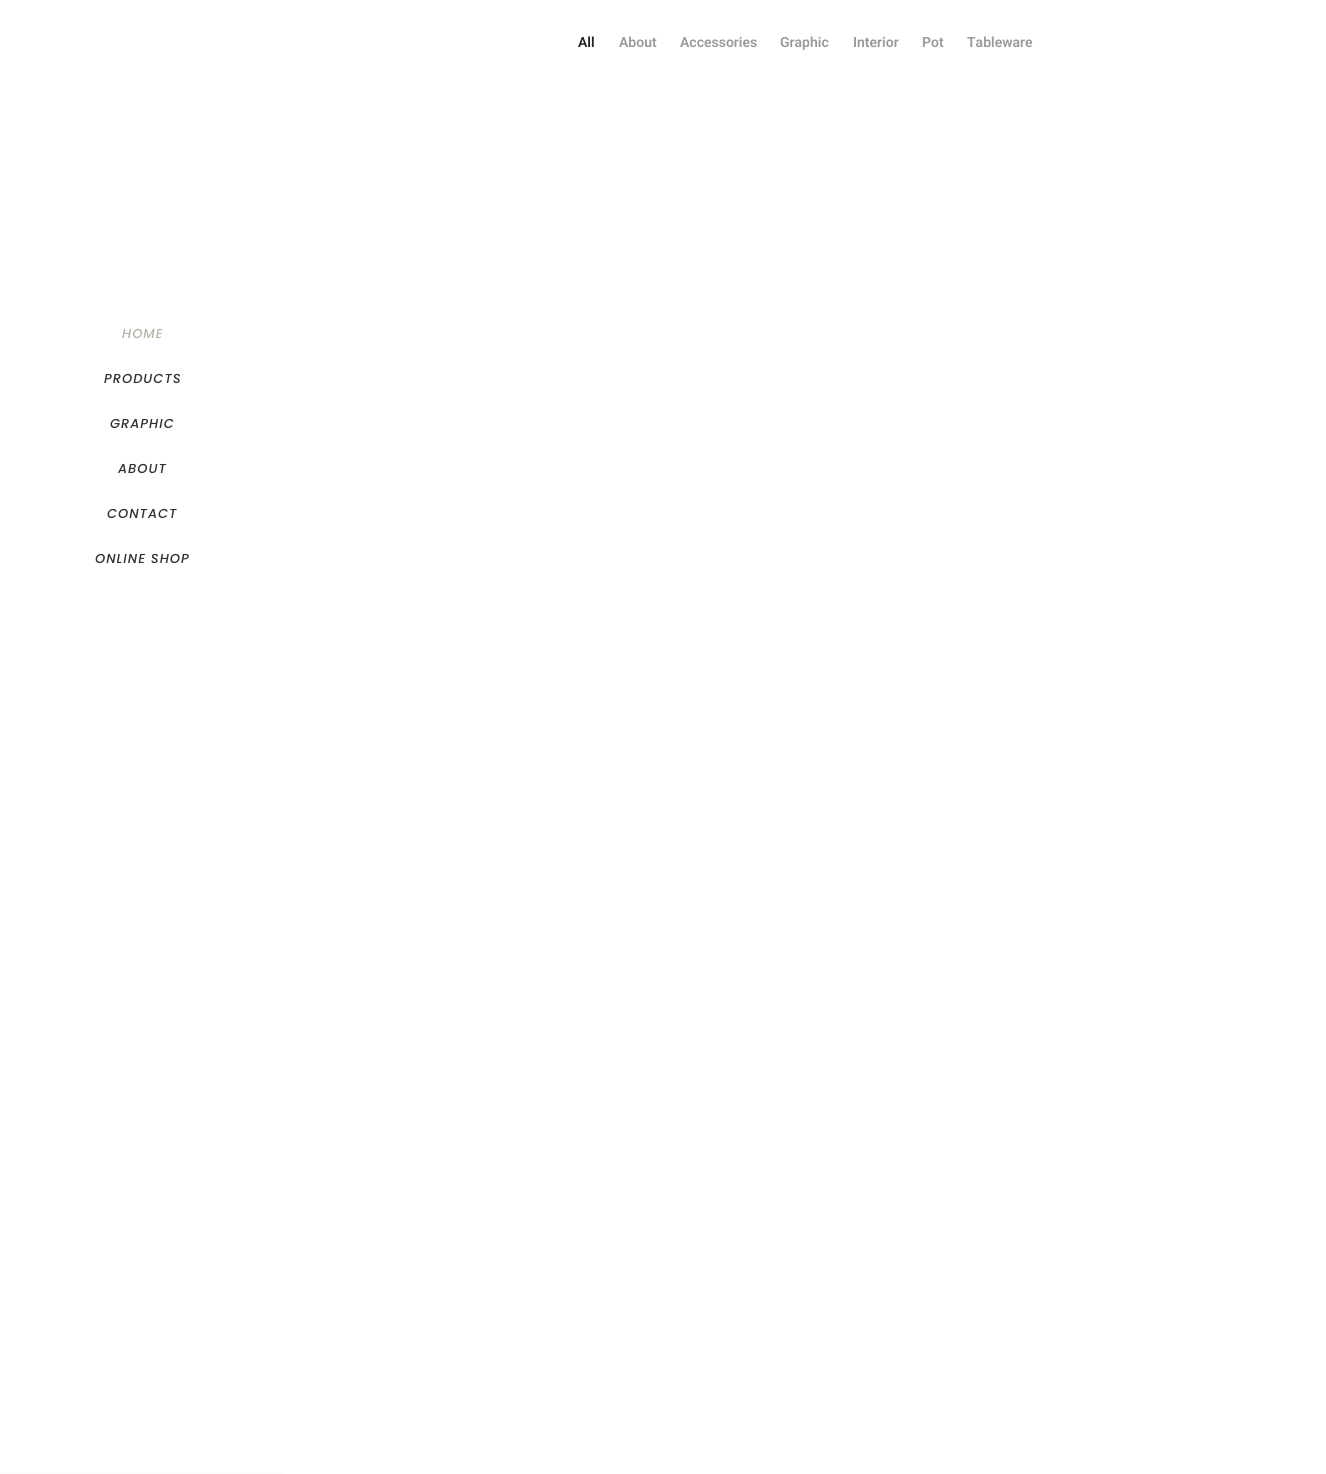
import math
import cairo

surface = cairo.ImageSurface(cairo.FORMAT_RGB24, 1326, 1474)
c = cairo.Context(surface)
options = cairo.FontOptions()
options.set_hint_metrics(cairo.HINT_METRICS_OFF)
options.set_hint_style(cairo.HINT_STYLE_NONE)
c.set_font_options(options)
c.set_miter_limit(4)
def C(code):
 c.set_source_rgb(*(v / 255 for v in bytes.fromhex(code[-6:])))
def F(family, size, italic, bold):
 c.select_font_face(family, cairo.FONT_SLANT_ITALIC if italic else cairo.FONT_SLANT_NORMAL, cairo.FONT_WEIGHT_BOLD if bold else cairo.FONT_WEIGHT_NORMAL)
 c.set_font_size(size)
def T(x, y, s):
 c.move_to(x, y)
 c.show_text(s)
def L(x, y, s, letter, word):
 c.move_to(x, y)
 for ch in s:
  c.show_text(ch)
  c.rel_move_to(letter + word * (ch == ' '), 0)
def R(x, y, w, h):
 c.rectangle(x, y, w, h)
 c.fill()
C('ffffff')
c.paint()
F('Roboto SemiBold',14,0,0)
C('222222')
T(578,47,'All')
C('999999')
T(619,47,'About')
T(680,47,'Accessories')
T(780,47,'Graphic')
T(853,47,'Interior')
T(922,47,'Pot')
T(967,47,'Tableware')
C('fcfcfc')
R(0,1473,285,1)
F('Poppins Medium',13,1,0)
C('b7b5a4')
L(122,338,'HOME',1,0)
C('303133')
L(104,383,'PRODUCTS',1,0)
L(110,428,'GRAPHIC',1,0)
L(118,473,'ABOUT',1,0)
L(107,518,'CONTACT',1,0)
L(95,563,'ONLINE SHOP',1,0)
surface.write_to_png('o.png')
